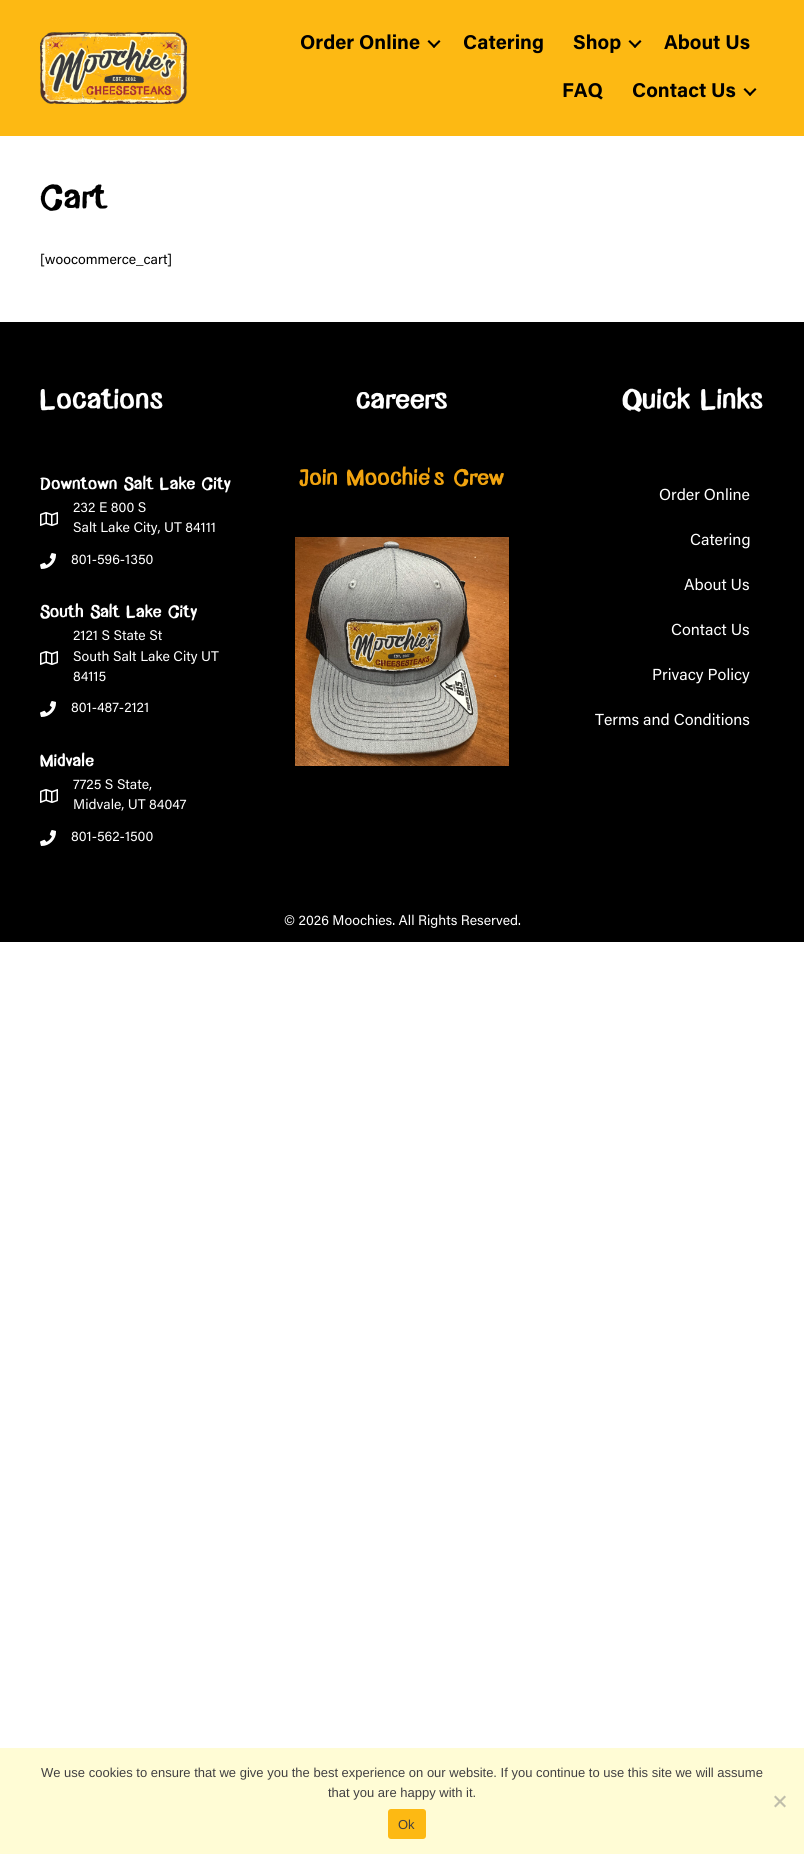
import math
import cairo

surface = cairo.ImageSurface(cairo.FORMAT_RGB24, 804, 1854)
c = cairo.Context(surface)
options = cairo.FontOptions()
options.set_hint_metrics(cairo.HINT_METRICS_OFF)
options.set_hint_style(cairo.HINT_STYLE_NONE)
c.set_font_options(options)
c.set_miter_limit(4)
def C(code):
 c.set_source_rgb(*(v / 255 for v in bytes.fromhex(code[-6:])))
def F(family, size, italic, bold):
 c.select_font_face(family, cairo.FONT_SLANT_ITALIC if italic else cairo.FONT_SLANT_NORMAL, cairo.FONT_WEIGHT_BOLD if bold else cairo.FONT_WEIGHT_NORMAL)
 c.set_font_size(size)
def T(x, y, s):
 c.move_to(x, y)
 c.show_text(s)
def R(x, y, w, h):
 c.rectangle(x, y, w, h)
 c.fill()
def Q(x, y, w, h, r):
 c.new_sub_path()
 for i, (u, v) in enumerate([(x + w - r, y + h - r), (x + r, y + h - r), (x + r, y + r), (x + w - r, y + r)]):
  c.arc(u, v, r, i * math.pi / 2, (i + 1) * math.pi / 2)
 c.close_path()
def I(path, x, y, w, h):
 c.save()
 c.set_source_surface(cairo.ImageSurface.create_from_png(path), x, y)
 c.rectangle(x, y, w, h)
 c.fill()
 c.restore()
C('ffffff')
c.paint()
C('fdb913')
R(0,0,804,136)
I('1.png',40,32,147,72)
F('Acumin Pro',20,0,1)
C('000000')
T(300,49,'Order Online')
c.new_path()
c.move_to(439,40)
c.line_to(440.5,41.5)
c.line_to(434,48)
c.line_to(432.5,46.5)
c.close_path()
c.fill()
c.new_path()
c.move_to(429,40)
c.line_to(435.5,46.5)
c.line_to(434,48)
c.line_to(427.5,41.5)
c.close_path()
c.fill()
T(463,49,'Catering')
T(573,49,'Shop')
c.new_path()
c.move_to(640,40)
c.line_to(641.5,41.5)
c.line_to(635,48)
c.line_to(633.5,46.5)
c.close_path()
c.fill()
c.new_path()
c.move_to(630,40)
c.line_to(636.5,46.5)
c.line_to(635,48)
c.line_to(628.5,41.5)
c.close_path()
c.fill()
T(664,49,'About Us')
T(562,97,'FAQ')
T(632,97,'Contact Us')
c.new_path()
c.move_to(755,88)
c.line_to(756.5,89.5)
c.line_to(750,96)
c.line_to(748.5,94.5)
c.close_path()
c.fill()
c.new_path()
c.move_to(745,88)
c.line_to(751.5,94.5)
c.line_to(750,96)
c.line_to(743.5,89.5)
c.close_path()
c.fill()
F('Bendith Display',36,0,0)
T(40,210,'Cart')
F('Acumin Pro',14,0,0)
T(40,264,'[woocommerce_cart]')
R(0,322,804,620)
F('Bendith Display',30,0,0)
C('ffffff')
T(40,410,'Locations')
F('Bendith Display',18,0,0)
T(40,490,'Downtown Salt Lake City')
I('2.png',40,512,18,14)
F('Acumin Pro',14,0,0)
T(73,512,'232 E 800 S')
T(73,532,'Salt Lake City, UT 84111')
I('3.png',40,553,16,16)
T(71,564,'801-596-1350')
F('Bendith Display',18,0,0)
T(40,618,'South Salt Lake City')
I('2.png',40,651,18,14)
F('Acumin Pro',14,0,0)
T(73,640,'2121 S State St')
T(73,661,'South Salt Lake City UT')
T(73,681,'84115')
I('3.png',40,701,16,16)
T(71,712,'801-487-2121')
F('Bendith Display',18,0,0)
T(40,767,'Midvale')
I('2.png',40,789,18,14)
F('Acumin Pro',14,0,0)
T(73,789,'7725 S State,')
T(73,809,'Midvale, UT 84047')
I('3.png',40,830,16,16)
T(71,841,'801-562-1500')
F('Bendith Display',30,0,0)
T(356,410,'careers')
F('Bendith Display',24,0,0)
C('f0a30f')
T(299,486,'Join Moochie\'s Crew')
I('4.png',295,537,214,229)
F('Bendith Display',30,0,0)
C('ffffff')
T(622,410,'Quick Links')
F('Acumin Pro',16,0,0)
T(659,500,'Order Online')
T(690,545,'Catering')
T(684,590,'About Us')
T(671,635,'Contact Us')
T(652,680,'Privacy Policy')
T(595,725,'Terms and Conditions')
F('Acumin Pro',14,0,0)
T(284,925,'© 2026 Moochies. All Rights Reserved.')
C('fffcd5')
R(0,1748,804,106)
F('Liberation Sans',13,0,0)
C('414042')
T(41,1777,'We use cookies to ensure that we give you the best experience on our website. If you continue to use this site we will assume')
T(328,1797,'that you are happy with it.')
C('c0beab')
c.new_path()
c.move_to(784.5,1795.5)
c.line_to(786,1797)
c.line_to(775.5,1807.5)
c.line_to(774,1806)
c.close_path()
c.fill()
c.new_path()
c.move_to(774,1797)
c.line_to(775.5,1795.5)
c.line_to(786,1806)
c.line_to(784.5,1807.5)
c.close_path()
c.fill()
C('fdb913')
Q(388,1809,38,30,3)
c.fill()
C('414042')
T(398,1829,'Ok')
surface.write_to_png('o.png')
